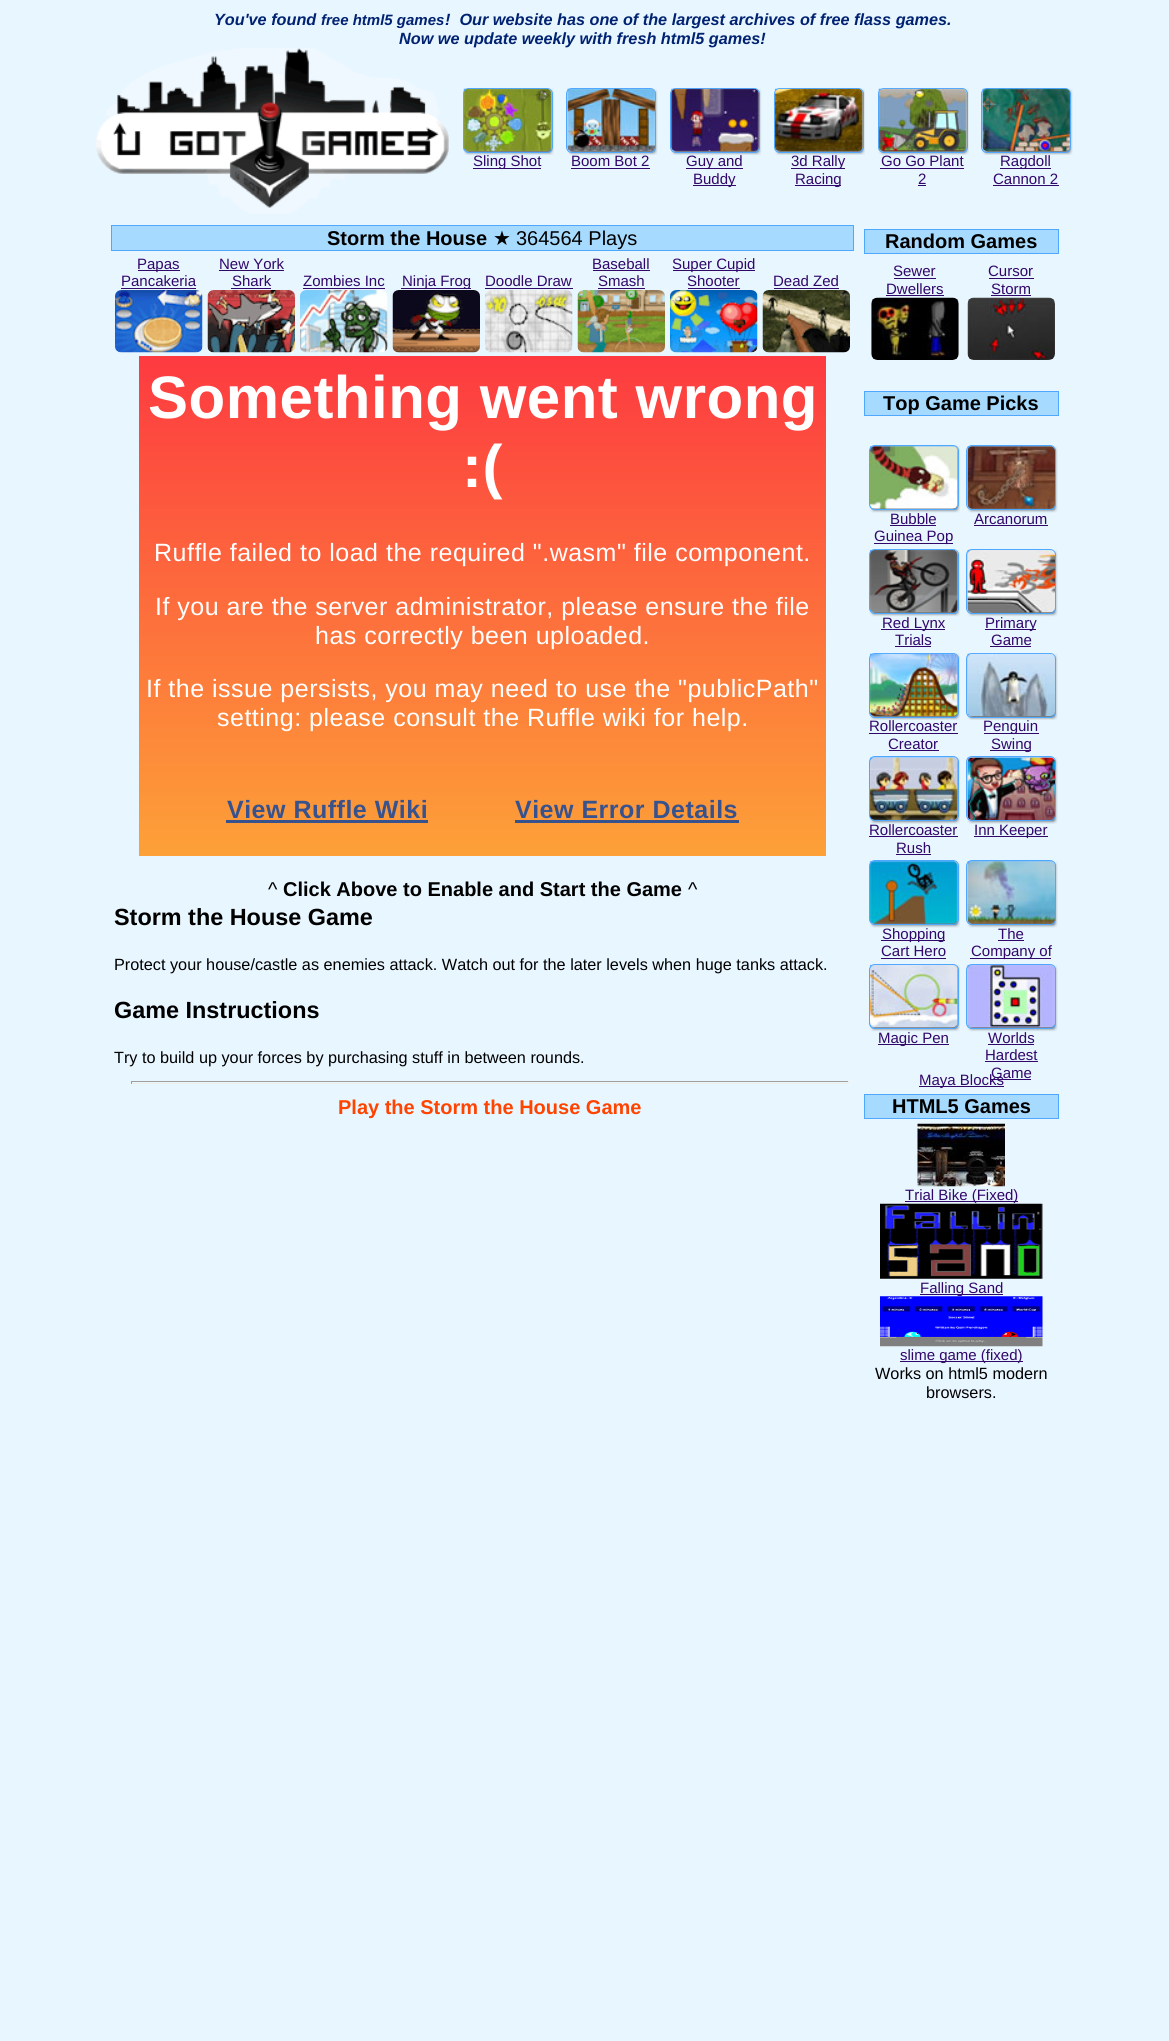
import math
import cairo

surface = cairo.ImageSurface(cairo.FORMAT_RGB24, 1169, 2041)
c = cairo.Context(surface)
options = cairo.FontOptions()
options.set_hint_metrics(cairo.HINT_METRICS_OFF)
options.set_hint_style(cairo.HINT_STYLE_NONE)
c.set_font_options(options)
c.set_miter_limit(4)
def C(code):
 c.set_source_rgb(*(v / 255 for v in bytes.fromhex(code[-6:])))
def F(family, size, italic, bold):
 c.select_font_face(family, cairo.FONT_SLANT_ITALIC if italic else cairo.FONT_SLANT_NORMAL, cairo.FONT_WEIGHT_BOLD if bold else cairo.FONT_WEIGHT_NORMAL)
 c.set_font_size(size)
def T(x, y, s):
 c.move_to(x, y)
 c.show_text(s)
def L(x, y, s, letter, word):
 c.move_to(x, y)
 for ch in s:
  c.show_text(ch)
  c.rel_move_to(letter + word * (ch == ' '), 0)
def R(x, y, w, h):
 c.rectangle(x, y, w, h)
 c.fill()
def Q(x, y, w, h, r):
 c.new_sub_path()
 for i, (u, v) in enumerate([(x + w - r, y + h - r), (x + r, y + h - r), (x + r, y + r), (x + w - r, y + r)]):
  c.arc(u, v, r, i * math.pi / 2, (i + 1) * math.pi / 2)
 c.close_path()
def I(path, x, y, w, h):
 c.save()
 c.set_source_surface(cairo.ImageSurface.create_from_png(path), x, y)
 c.rectangle(x, y, w, h)
 c.fill()
 c.restore()
C('e8f6ff')
c.paint()
F('Liberation Sans',16.25,1,1)
C('002271')
T(214,25,'You\'ve found')
F('Liberation Sans',15,1,1)
T(321,25,'free html5 games')
F('Liberation Sans',16.25,1,1)
T(445,25,'!  Our website has one of the largest archives of free flass games.')
T(399,44,'Now we update weekly with fresh html5 games!')
I('1.png',96,48,353,166)
I('2.png',463,88,91,67)
Q(463.5,88.5,89,64,5.5)
C('4fa7ff')
c.set_line_width(1)
c.stroke()
I('3.png',463,88,89,64)
C('310769')
R(473,168,68,1)
F('Liberation Sans',15,0,0)
T(473,166,'Sling Shot')
I('4.png',567,88,91,67)
Q(566.5,88.5,89,64,5.5)
C('4fa7ff')
c.stroke()
I('5.png',567,88,88,63)
C('310769')
T(571,166,'Boom Bot 2')
R(571,168,79,1)
I('6.png',671,88,91,67)
Q(670.5,88.5,89,64,5.5)
C('4fa7ff')
c.stroke()
I('7.png',671,88,88,64)
C('310769')
R(686,168,57,1)
T(686,166,'Guy and')
R(693,185,43,1)
T(693,184,'Buddy')
I('8.png',774,88,91,67)
Q(774.5,88.5,89,64,5.5)
C('4fa7ff')
c.stroke()
I('9.png',775,88,88,64)
C('310769')
R(791,168,54,1)
T(791,166,'3d Rally')
R(795,185,46,1)
T(795,184,'Racing')
I('10.png',878,88,91,67)
Q(878.5,88.5,89,64,5.5)
C('4fa7ff')
c.stroke()
I('11.png',878,88,89,64)
C('310769')
T(881,166,'Go Go Plant')
R(880,168,84,1)
T(918,184,'2')
R(918,185,8,1)
I('12.png',982,88,91,67)
Q(981.5,88.5,89,64,5.5)
C('4fa7ff')
c.stroke()
I('13.png',982,88,88,64)
C('310769')
R(1000,168,51,1)
T(1000,166,'Ragdoll')
T(993,184,'Cannon 2')
R(993,185,66,1)
C('a6dbff')
c.rectangle(111.5,225.5,742,25)
c.fill_preserve()
C('4fa7ff')
c.stroke()
F('Liberation Sans',20,0,1)
C('000000')
T(327,245,'Storm the House')
F('DejaVu Sans',20,0,0)
T(493,245,'★')
F('Liberation Sans',20,0,0)
T(516,245,'364564 Plays')
C('310769')
R(138,270,42,1)
F('Liberation Sans',15,0,0)
T(137,269,'Papas')
T(121,286,'Pancakeria')
R(121,288,75,1)
I('14.png',115,290,88,63)
T(219,269,'New York')
R(219,270,65,1)
T(232,286,'Shark')
R(231,288,40,1)
I('15.png',207,290,88,63)
T(303,286,'Zombies Inc')
R(303,288,82,1)
I('16.png',300,290,88,63)
R(401,288,70,1)
T(402,286,'Ninja Frog')
I('17.png',392,290,88,63)
T(485,286,'Doodle Draw')
R(485,288,88,1)
I('18.png',485,290,88,63)
T(592,269,'Baseball')
R(593,270,57,1)
T(598,286,'Smash')
R(598,288,47,1)
I('19.png',577,290,88,63)
R(673,270,82,1)
T(672,269,'Super Cupid')
T(687,286,'Shooter')
R(688,288,52,1)
I('20.png',670,290,88,63)
T(773,286,'Dead Zed')
R(774,288,65,1)
I('21.png',762,290,88,63)
gradient = cairo.LinearGradient(483,356,483,856)
gradient.add_color_stop_rgba(0,0.992,0.227,0.251,1)
gradient.add_color_stop_rgba(1,0.992,0.631,0.22,1)
c.set_source(gradient)
R(139,356,687,500)
F('Liberation Sans',60,0,1)
C('ffffff')
L(148,418,'Something went wrong',.5,0)
L(462,487,':(',.5,0)
F('Liberation Sans',25,0,0)
L(154,561,'Ruffle failed to load the required ".wasm" file component.',.5,0)
L(155,615,'If you are the server administrator, please ensure the file',.5,0)
L(315,644,'has correctly been uploaded.',.5,0)
L(146,697,'If the issue persists, you may need to use the "publicPath"',.5,0)
L(217,726,'setting: please consult the Ruffle wiki for help.',.5,0)
F('Liberation Sans',25,0,1)
C('37528c')
L(227,818,'View Ruffle Wiki',.5,0)
R(226,820,202,3)
L(515,818,'View Error Details',.5,0)
R(515,820,224,3)
F('Liberation Sans',20,0,0)
C('000000')
T(268,896,'^')
F('Liberation Sans',20,0,1)
T(283,896,'Click Above to Enable and Start the Game')
F('Liberation Sans',20,0,0)
T(688,896,'^')
F('Liberation Sans',23.4,0,1)
T(114,925,'Storm the House Game')
F('Liberation Sans',16.25,0,0)
T(114,970,'Protect your house/castle as enemies attack. Watch out for the later levels when huge tanks attack.')
F('Liberation Sans',23.4,0,1)
T(114,1018,'Game Instructions')
F('Liberation Sans',16.25,0,0)
T(114,1063,'Try to build up your forces by purchasing stuff in between rounds.')
C('9f9f9f')
R(131,1081,718,1)
C('eeeeee')
R(848,1081,1,3)
R(131,1083,718,1)
C('9f9f9f')
R(131,1081,1,3)
F('Liberation Sans',20,0,1)
C('ff4400')
T(338,1114,'Play the Storm the House Game')
C('a6dbff')
c.rectangle(864.5,229.5,194,24)
c.fill_preserve()
C('4fa7ff')
c.stroke()
C('000000')
T(885,248,'Random Games')
F('Liberation Sans',15,0,0)
C('310769')
T(893,276,'Sewer')
R(894,278,42,1)
T(886,294,'Dwellers')
R(886,295,58,1)
I('22.png',871,297,88,63)
T(988,276,'Cursor')
R(989,278,45,1)
T(991,294,'Storm')
R(991,295,40,1)
I('23.png',967,297,88,63)
C('a6dbff')
c.rectangle(864.5,391.5,194,24)
c.fill_preserve()
C('4fa7ff')
c.stroke()
F('Liberation Sans',20,0,1)
C('000000')
T(883,410,'Top Game Picks')
I('24.png',869,446,91,67)
Q(869.5,445.5,89,64,5.5)
C('4fa7ff')
c.stroke()
I('25.png',870,446,88,63)
F('Liberation Sans',15,0,0)
C('310769')
T(890,524,'Bubble')
R(890,525,46,1)
R(874,543,79,1)
T(874,541,'Guinea Pop')
I('26.png',967,446,91,67)
Q(966.5,445.5,89,64,5.5)
C('4fa7ff')
c.stroke()
I('27.png',967,446,88,63)
C('310769')
T(974,524,'Arcanorum')
R(974,525,74,1)
I('28.png',869,549,91,68)
Q(869.5,549.5,89,64,5.5)
C('4fa7ff')
c.stroke()
I('29.png',870,550,88,63)
C('310769')
R(881,629,64,1)
T(882,628,'Red Lynx')
T(895,645,'Trials')
R(895,646,36,1)
I('30.png',967,549,91,68)
Q(966.5,549.5,89,64,5.5)
C('4fa7ff')
c.stroke()
I('31.png',967,550,88,63)
C('310769')
R(985,629,51,1)
T(985,628,'Primary')
T(991,645,'Game')
R(990,646,41,1)
I('8.png',869,653,91,67)
Q(869.5,653.5,89,64,5.5)
C('4fa7ff')
c.stroke()
I('32.png',870,653,88,64)
C('310769')
T(869,731,'Rollercoaster')
R(869,733,89,1)
T(888,749,'Creator')
R(889,750,50,1)
I('12.png',967,653,91,67)
Q(966.5,653.5,89,64,5.5)
C('4fa7ff')
c.stroke()
I('33.png',967,653,88,64)
C('310769')
R(984,733,55,1)
T(983,731,'Penguin')
R(990,750,41,1)
T(991,749,'Swing')
I('34.png',869,757,91,67)
Q(869.5,756.5,89,64,5.5)
C('4fa7ff')
c.stroke()
I('35.png',870,757,88,63)
C('310769')
T(869,835,'Rollercoaster')
R(869,836,89,1)
T(896,853,'Rush')
R(896,854,35,1)
I('36.png',967,757,91,67)
Q(966.5,756.5,89,64,5.5)
C('4fa7ff')
c.stroke()
I('37.png',967,757,88,63)
C('310769')
R(974,836,74,1)
T(974,835,'Inn Keeper')
I('24.png',869,861,91,67)
Q(869.5,860.5,89,64,5.5)
C('4fa7ff')
c.stroke()
I('38.png',870,861,88,63)
C('310769')
R(881,940,64,1)
T(882,939,'Shopping')
T(881,956,'Cart Hero')
R(881,958,65,1)
I('26.png',967,861,91,67)
Q(966.5,860.5,89,64,5.5)
C('4fa7ff')
c.stroke()
I('39.png',967,861,88,63)
C('310769')
T(998,939,'The')
R(998,940,26,1)
R(970,958,81,1)
T(971,956,'Company of')
I('40.png',869,964,91,68)
Q(869.5,964.5,89,64,5.5)
C('4fa7ff')
c.stroke()
I('41.png',870,965,88,63)
C('310769')
R(878,1044,71,1)
T(878,1043,'Magic Pen')
I('42.png',967,964,91,68)
Q(966.5,964.5,89,64,5.5)
C('4fa7ff')
c.stroke()
I('43.png',967,965,88,63)
C('310769')
T(988,1043,'Worlds')
R(988,1044,46,1)
T(985,1060,'Hardest')
R(985,1061,53,1)
T(991,1078,'Game')
R(990,1079,41,1)
R(919,1086,85,1)
T(919,1085,'Maya Blocks')
C('a6dbff')
c.rectangle(864.5,1094.5,194,24)
c.fill_preserve()
C('4fa7ff')
c.stroke()
F('Liberation Sans',20,0,1)
C('000000')
T(892,1113,'HTML5 Games')
I('44.png',917,1123,88,64)
C('310769')
R(905,1201,113,1)
F('Liberation Sans',15,0,0)
T(905,1200,'Trial Bike (Fixed)')
I('45.png',880,1203,163,76)
R(920,1294,83,1)
T(920,1293,'Falling Sand')
I('46.png',880,1296,163,51)
R(900,1361,123,1)
T(900,1360,'slime game (fixed)')
F('Liberation Sans',16.25,0,0)
C('000000')
T(875,1379,'Works on html5 modern')
T(926,1398,'browsers.')
surface.write_to_png('o.png')
